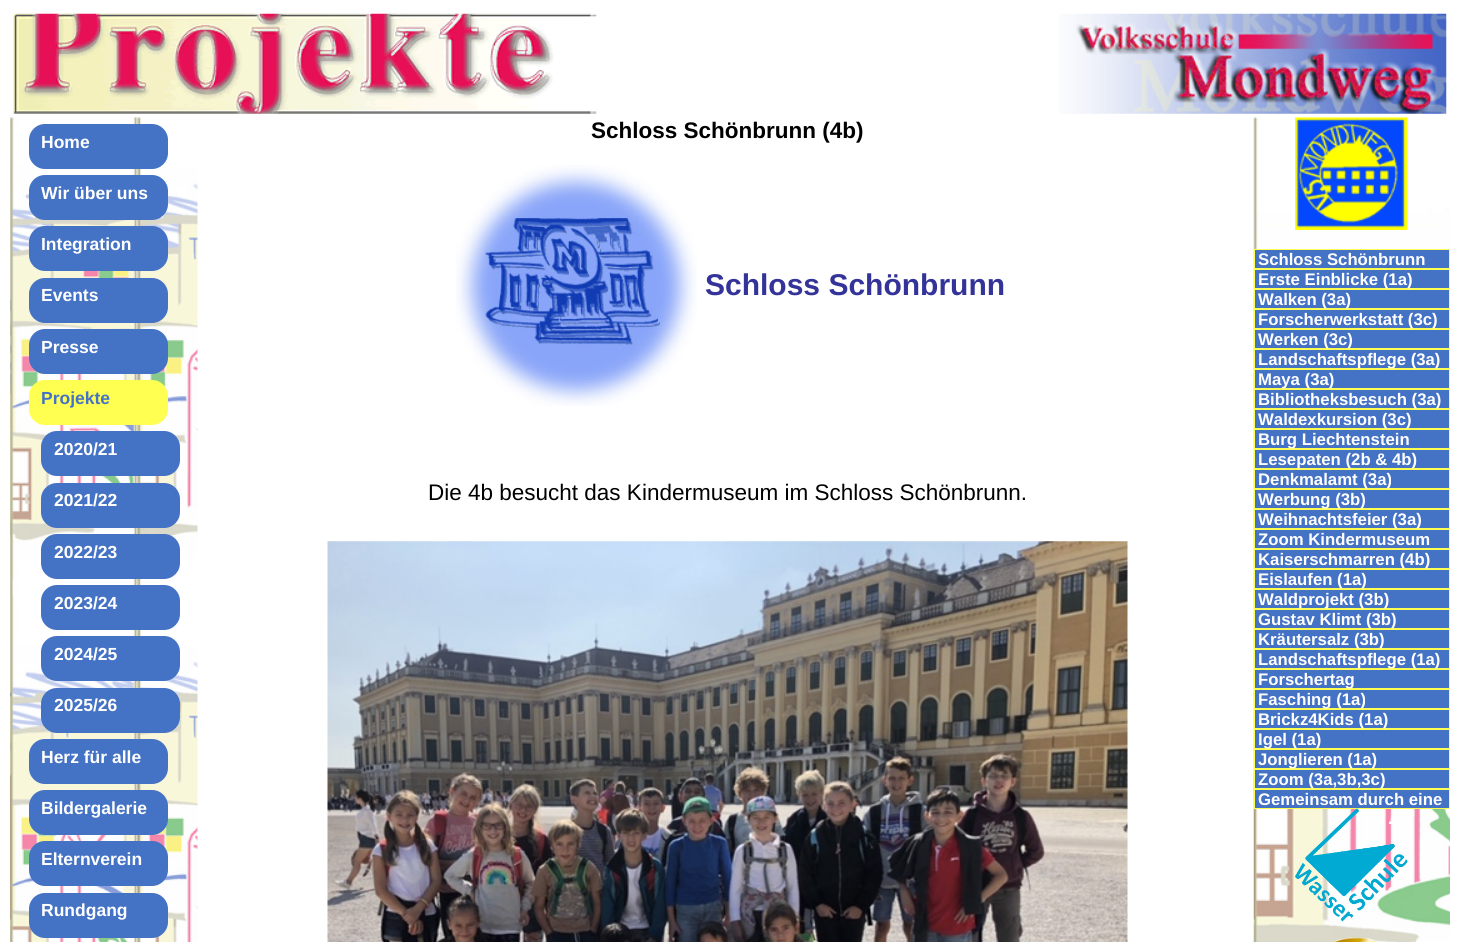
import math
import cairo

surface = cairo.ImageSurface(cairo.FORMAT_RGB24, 1459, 942)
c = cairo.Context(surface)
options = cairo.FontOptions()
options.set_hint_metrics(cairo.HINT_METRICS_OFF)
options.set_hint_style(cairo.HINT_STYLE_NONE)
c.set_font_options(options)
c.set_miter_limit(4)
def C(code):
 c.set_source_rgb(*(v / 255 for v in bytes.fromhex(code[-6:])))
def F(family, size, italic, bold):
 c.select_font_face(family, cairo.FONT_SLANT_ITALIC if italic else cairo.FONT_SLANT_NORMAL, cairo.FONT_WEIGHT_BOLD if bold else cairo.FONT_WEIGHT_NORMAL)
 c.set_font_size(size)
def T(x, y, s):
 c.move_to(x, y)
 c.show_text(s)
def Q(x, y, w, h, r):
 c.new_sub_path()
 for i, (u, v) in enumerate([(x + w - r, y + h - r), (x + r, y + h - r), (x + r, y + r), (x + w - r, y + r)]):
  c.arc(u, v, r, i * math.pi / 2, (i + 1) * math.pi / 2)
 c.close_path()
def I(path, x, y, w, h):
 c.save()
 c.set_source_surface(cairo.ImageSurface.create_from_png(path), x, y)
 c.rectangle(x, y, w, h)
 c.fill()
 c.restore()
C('ffffff')
c.paint()
I('1.png',13,13,584,101)
I('2.png',1059,13,388,101)
I('3.png',10,117,188,825)
C('4472c4')
Q(29,124,139,45,16)
c.fill()
F('Liberation Sans',17.5,0,1)
C('ffffff')
T(41,148,'Home')
C('4472c4')
Q(29,175,139,45,16)
c.fill()
C('ffffff')
T(41,199,'Wir über uns')
C('4472c4')
Q(29,226,139,45,16)
c.fill()
C('ffffff')
T(41,250,'Integration')
C('4472c4')
Q(29,278,139,45,16)
c.fill()
C('ffffff')
T(41,301,'Events')
C('4472c4')
Q(29,329,139,45,16)
c.fill()
C('ffffff')
T(41,353,'Presse')
C('ffff51')
Q(29,380,139,45,16)
c.fill()
C('4472c4')
T(41,404,'Projekte')
Q(41,431,139,45,16)
c.fill()
C('ffffff')
T(54,455,'2020/21')
C('4472c4')
Q(41,483,139,45,16)
c.fill()
C('ffffff')
T(54,506,'2021/22')
C('4472c4')
Q(41,534,139,45,16)
c.fill()
C('ffffff')
T(54,558,'2022/23')
C('4472c4')
Q(41,585,139,45,16)
c.fill()
C('ffffff')
T(54,609,'2023/24')
C('4472c4')
Q(41,636,139,45,16)
c.fill()
C('ffffff')
T(54,660,'2024/25')
C('4472c4')
Q(41,688,139,45,16)
c.fill()
C('ffffff')
T(54,711,'2025/26')
C('4472c4')
Q(29,739,139,45,16)
c.fill()
C('ffffff')
T(41,763,'Herz für alle')
C('4472c4')
Q(29,790,139,45,16)
c.fill()
C('ffffff')
T(41,814,'Bildergalerie')
C('4472c4')
Q(29,841,139,45,16)
c.fill()
C('ffffff')
T(41,865,'Elternverein')
C('4472c4')
Q(29,893,139,45,16)
c.fill()
C('ffffff')
T(41,916,'Rundgang')
F('Liberation Sans',22.5,0,1)
C('000000')
T(591,138,'Schloss Schönbrunn (4b)')
I('4.png',456,165,241,241)
F('Liberation Sans',30,0,1)
C('333399')
T(705,295,'Schloss Schönbrunn')
F('Liberation Sans',22.5,0,0)
C('000000')
T(428,500,'Die 4b besucht das Kindermuseum im Schloss Schönbrunn.')
I('5.png',327,541,801,401)
I('6.png',1253,117,197,825)
I('7.png',1295,117,113,113)
C('4472c4')
c.rectangle(1254.5,249.5,195,19)
c.fill_preserve()
C('ffff51')
c.set_line_width(1)
c.stroke()
F('Liberation Sans',16.75,0,1)
C('ffffff')
T(1258,265,'Schloss Schönbrunn')
C('4472c4')
c.rectangle(1254.5,269.5,195,19)
c.fill_preserve()
C('ffff51')
c.stroke()
C('ffffff')
T(1258,285,'Erste Einblicke (1a)')
C('4472c4')
c.rectangle(1254.5,289.5,195,19)
c.fill_preserve()
C('ffff51')
c.stroke()
C('ffffff')
T(1258,305,'Walken (3a)')
C('4472c4')
c.rectangle(1254.5,309.5,195,19)
c.fill_preserve()
C('ffff51')
c.stroke()
C('ffffff')
T(1258,325,'Forscherwerkstatt (3c)')
C('4472c4')
c.rectangle(1254.5,329.5,195,19)
c.fill_preserve()
C('ffff51')
c.stroke()
C('ffffff')
T(1258,345,'Werken (3c)')
C('4472c4')
c.rectangle(1254.5,349.5,195,19)
c.fill_preserve()
C('ffff51')
c.stroke()
C('ffffff')
T(1258,365,'Landschaftspflege (3a)')
C('4472c4')
c.rectangle(1254.5,369.5,195,19)
c.fill_preserve()
C('ffff51')
c.stroke()
C('ffffff')
T(1258,385,'Maya (3a)')
C('4472c4')
c.rectangle(1254.5,389.5,195,19)
c.fill_preserve()
C('ffff51')
c.stroke()
C('ffffff')
T(1258,405,'Bibliotheksbesuch (3a)')
C('4472c4')
c.rectangle(1254.5,409.5,195,19)
c.fill_preserve()
C('ffff51')
c.stroke()
C('ffffff')
T(1258,425,'Waldexkursion (3c)')
C('4472c4')
c.rectangle(1254.5,429.5,195,19)
c.fill_preserve()
C('ffff51')
c.stroke()
C('ffffff')
T(1258,445,'Burg Liechtenstein')
C('4472c4')
c.rectangle(1254.5,449.5,195,19)
c.fill_preserve()
C('ffff51')
c.stroke()
C('ffffff')
T(1258,465,'Lesepaten (2b & 4b)')
C('4472c4')
c.rectangle(1254.5,469.5,195,19)
c.fill_preserve()
C('ffff51')
c.stroke()
C('ffffff')
T(1258,485,'Denkmalamt (3a)')
C('4472c4')
c.rectangle(1254.5,489.5,195,19)
c.fill_preserve()
C('ffff51')
c.stroke()
C('ffffff')
T(1258,505,'Werbung (3b)')
C('4472c4')
c.rectangle(1254.5,509.5,195,19)
c.fill_preserve()
C('ffff51')
c.stroke()
C('ffffff')
T(1258,525,'Weihnachtsfeier (3a)')
C('4472c4')
c.rectangle(1254.5,529.5,195,19)
c.fill_preserve()
C('ffff51')
c.stroke()
C('ffffff')
T(1258,545,'Zoom Kindermuseum')
C('4472c4')
c.rectangle(1254.5,549.5,195,19)
c.fill_preserve()
C('ffff51')
c.stroke()
C('ffffff')
T(1258,565,'Kaiserschmarren (4b)')
C('4472c4')
c.rectangle(1254.5,569.5,195,19)
c.fill_preserve()
C('ffff51')
c.stroke()
C('ffffff')
T(1258,585,'Eislaufen (1a)')
C('4472c4')
c.rectangle(1254.5,589.5,195,19)
c.fill_preserve()
C('ffff51')
c.stroke()
C('ffffff')
T(1258,605,'Waldprojekt (3b)')
C('4472c4')
c.rectangle(1254.5,609.5,195,19)
c.fill_preserve()
C('ffff51')
c.stroke()
C('ffffff')
T(1258,625,'Gustav Klimt (3b)')
C('4472c4')
c.rectangle(1254.5,629.5,195,19)
c.fill_preserve()
C('ffff51')
c.stroke()
C('ffffff')
T(1258,645,'Kräutersalz (3b)')
C('4472c4')
c.rectangle(1254.5,649.5,195,19)
c.fill_preserve()
C('ffff51')
c.stroke()
C('ffffff')
T(1258,665,'Landschaftspflege (1a)')
C('4472c4')
c.rectangle(1254.5,669.5,195,19)
c.fill_preserve()
C('ffff51')
c.stroke()
C('ffffff')
T(1258,685,'Forschertag')
C('4472c4')
c.rectangle(1254.5,689.5,195,19)
c.fill_preserve()
C('ffff51')
c.stroke()
C('ffffff')
T(1258,705,'Fasching (1a)')
C('4472c4')
c.rectangle(1254.5,709.5,195,19)
c.fill_preserve()
C('ffff51')
c.stroke()
C('ffffff')
T(1258,725,'Brickz4Kids (1a)')
C('4472c4')
c.rectangle(1254.5,729.5,195,19)
c.fill_preserve()
C('ffff51')
c.stroke()
C('ffffff')
T(1258,745,'Igel (1a)')
C('4472c4')
c.rectangle(1254.5,749.5,195,19)
c.fill_preserve()
C('ffff51')
c.stroke()
C('ffffff')
T(1258,765,'Jonglieren (1a)')
C('4472c4')
c.rectangle(1254.5,769.5,195,19)
c.fill_preserve()
C('ffff51')
c.stroke()
C('ffffff')
T(1258,785,'Zoom (3a,3b,3c)')
C('4472c4')
c.rectangle(1254.5,789.5,195,19)
c.fill_preserve()
C('ffff51')
c.stroke()
C('ffffff')
T(1258,805,'Gemeinsam durch eine')
T(1388,824,'.')
I('8.png',1295,808,113,114)
I('9.png',1332,937,46,5)
surface.write_to_png('o.png')
